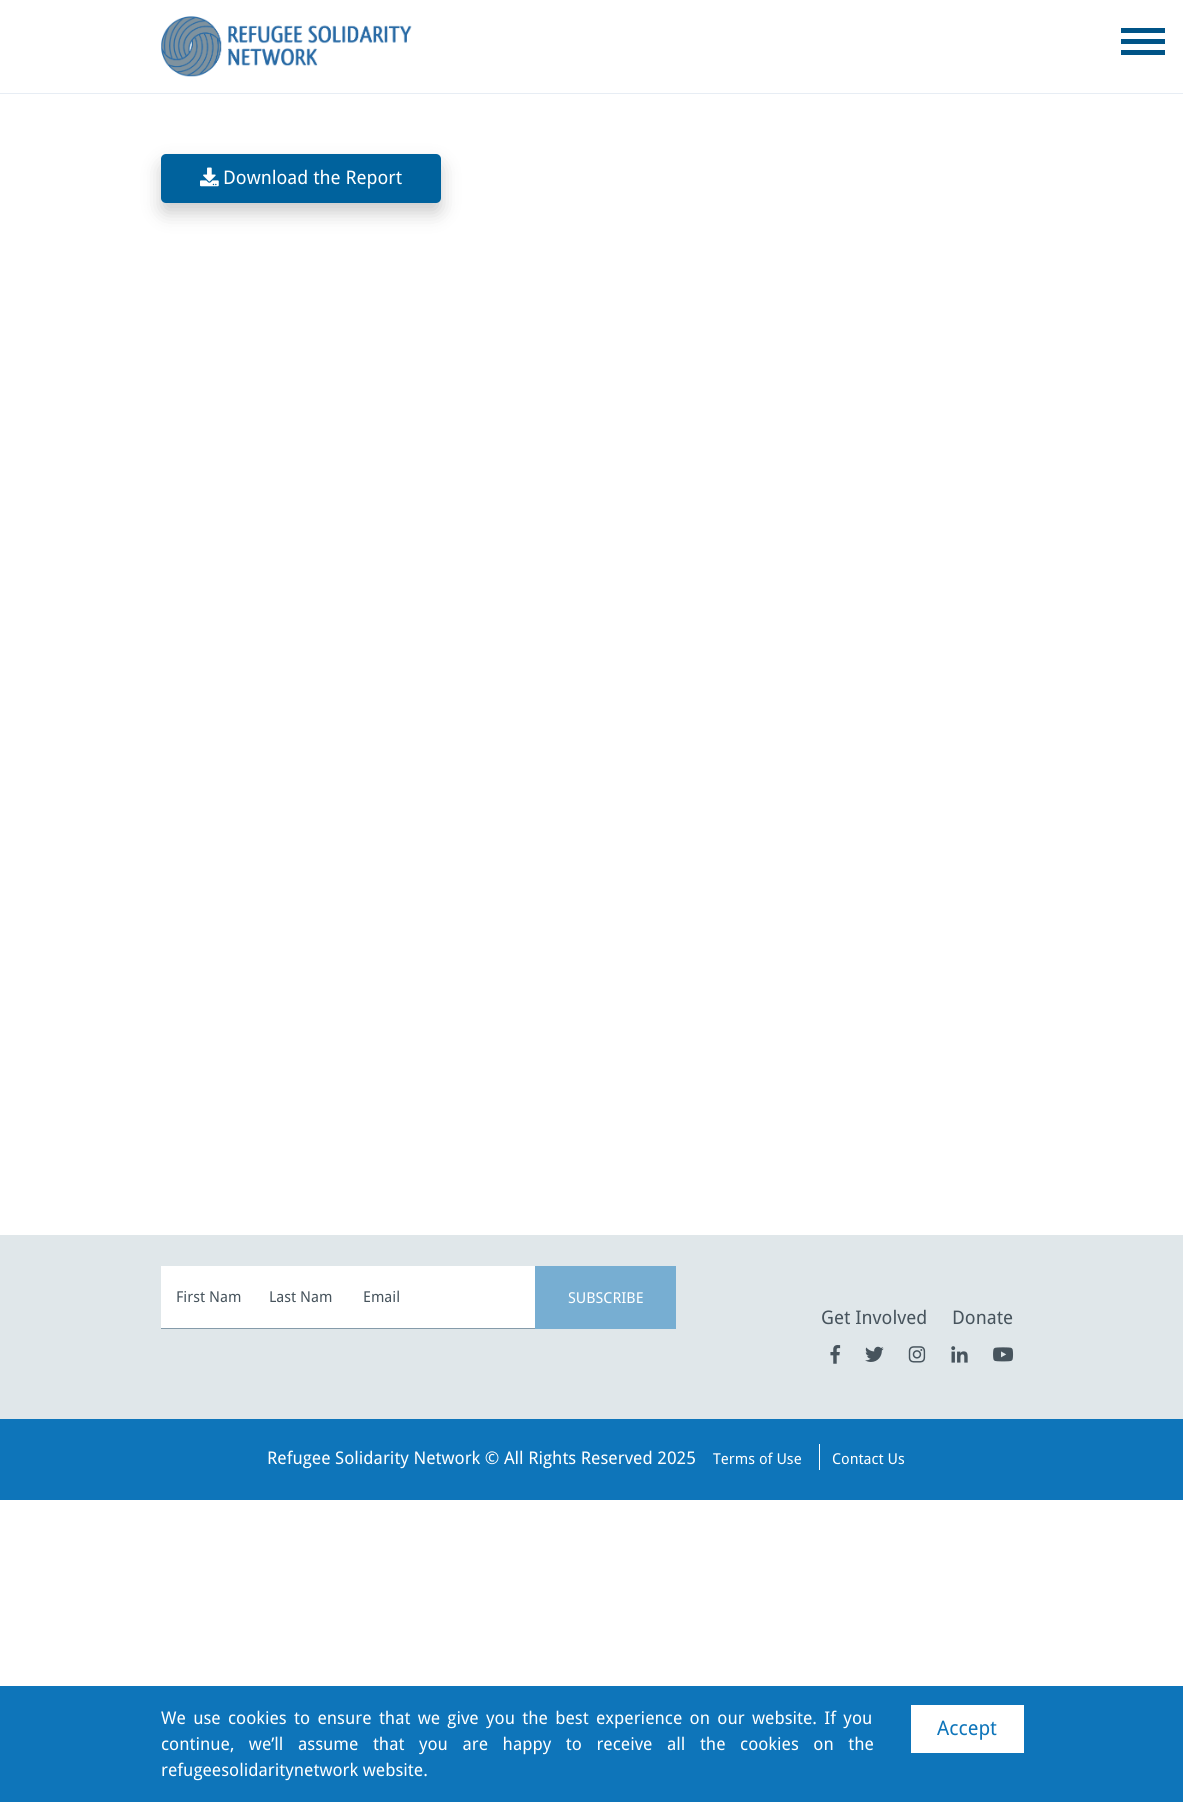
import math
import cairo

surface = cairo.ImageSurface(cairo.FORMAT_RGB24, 1183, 1802)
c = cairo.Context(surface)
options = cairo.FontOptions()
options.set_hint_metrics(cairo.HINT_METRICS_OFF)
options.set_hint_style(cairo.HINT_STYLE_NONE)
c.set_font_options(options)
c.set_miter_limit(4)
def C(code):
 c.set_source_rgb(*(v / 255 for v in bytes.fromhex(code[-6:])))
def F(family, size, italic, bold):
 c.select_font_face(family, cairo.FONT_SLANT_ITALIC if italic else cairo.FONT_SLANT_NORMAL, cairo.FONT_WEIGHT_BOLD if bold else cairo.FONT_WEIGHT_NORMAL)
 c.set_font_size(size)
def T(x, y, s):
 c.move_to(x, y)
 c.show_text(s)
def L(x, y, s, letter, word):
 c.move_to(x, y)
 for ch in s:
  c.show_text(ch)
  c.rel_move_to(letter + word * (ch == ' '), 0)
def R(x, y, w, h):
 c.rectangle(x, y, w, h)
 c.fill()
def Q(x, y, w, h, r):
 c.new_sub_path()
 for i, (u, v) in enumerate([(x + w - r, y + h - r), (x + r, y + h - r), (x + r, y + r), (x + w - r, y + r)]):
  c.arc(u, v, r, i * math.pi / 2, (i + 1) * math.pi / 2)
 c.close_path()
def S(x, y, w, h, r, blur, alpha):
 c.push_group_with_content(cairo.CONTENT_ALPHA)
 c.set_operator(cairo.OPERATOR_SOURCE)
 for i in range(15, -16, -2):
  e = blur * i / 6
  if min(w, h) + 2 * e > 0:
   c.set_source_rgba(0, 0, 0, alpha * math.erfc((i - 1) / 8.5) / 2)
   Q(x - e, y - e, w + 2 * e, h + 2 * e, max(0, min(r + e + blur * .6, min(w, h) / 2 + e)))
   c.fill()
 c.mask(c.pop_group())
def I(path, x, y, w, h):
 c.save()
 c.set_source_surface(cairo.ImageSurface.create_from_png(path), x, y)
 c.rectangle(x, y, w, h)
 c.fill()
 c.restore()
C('ffffff')
c.paint()
C('e7edf4')
R(0,93,1183,1)
I('1.png',161,16,251,61)
C('005487')
R(1121,28,44,5)
R(1121,39,44,5)
R(1121,50,44,5)
C('000000')
S(161,164,280,49,5,9.5,.2)
C('00629d')
Q(161,154,280,49,5)
c.fill()
I('2.png',200,167,19,20)
F('Droid Sans',18.75,0,0)
C('ffffff')
T(223,184,'Download the Report')
C('e0e7ea')
R(0,1235,1183,184)
C('ffffff')
R(161,1266,374,62)
C('859baa')
R(161,1328,374,1)
F('Droid Sans',15,0,0)
C('47545d')
T(176,1302,'First Nam')
T(269,1302,'Last Nam')
T(363,1302,'Email')
C('77aed2')
R(535,1266,141,63)
C('ffffff')
T(568,1303,'SUBSCRIBE')
F('Droid Sans',18.75,0,0)
C('47545d')
T(821,1324,'Get Involved')
T(952,1324,'Donate')
I('3.png',830,1345,11,19)
I('4.png',865,1346,19,16)
I('5.png',908,1346,18,17)
I('6.png',951,1346,17,17)
I('7.png',993,1347,21,15)
C('0e75ba')
R(0,1419,1183,81)
F('Droid Sans',17.5,0,0)
C('ffffff')
T(267,1464,'Refugee Solidarity Network © All Rights Reserved 2025')
F('Droid Sans',15,0,0)
T(713,1464,'Terms of Use')
R(819,1444,1,26)
T(832,1464,'Contact Us')
C('0e75ba')
R(0,1686,1183,116)
F('Droid Sans',17.5,0,0)
C('ffffff')
L(161,1724,'We use cookies to ensure that we give you the best experience on our website. If you',0,2.75)
L(161,1750,'continue, we’ll assume that you are happy to receive all the cookies on the',0,10)
T(161,1776,'refugeesolidaritynetwork website.')
R(911,1705,113,48)
F('Droid Sans',20,0,0)
C('0e75ba')
T(937,1735,'Accept')
surface.write_to_png('o.png')
